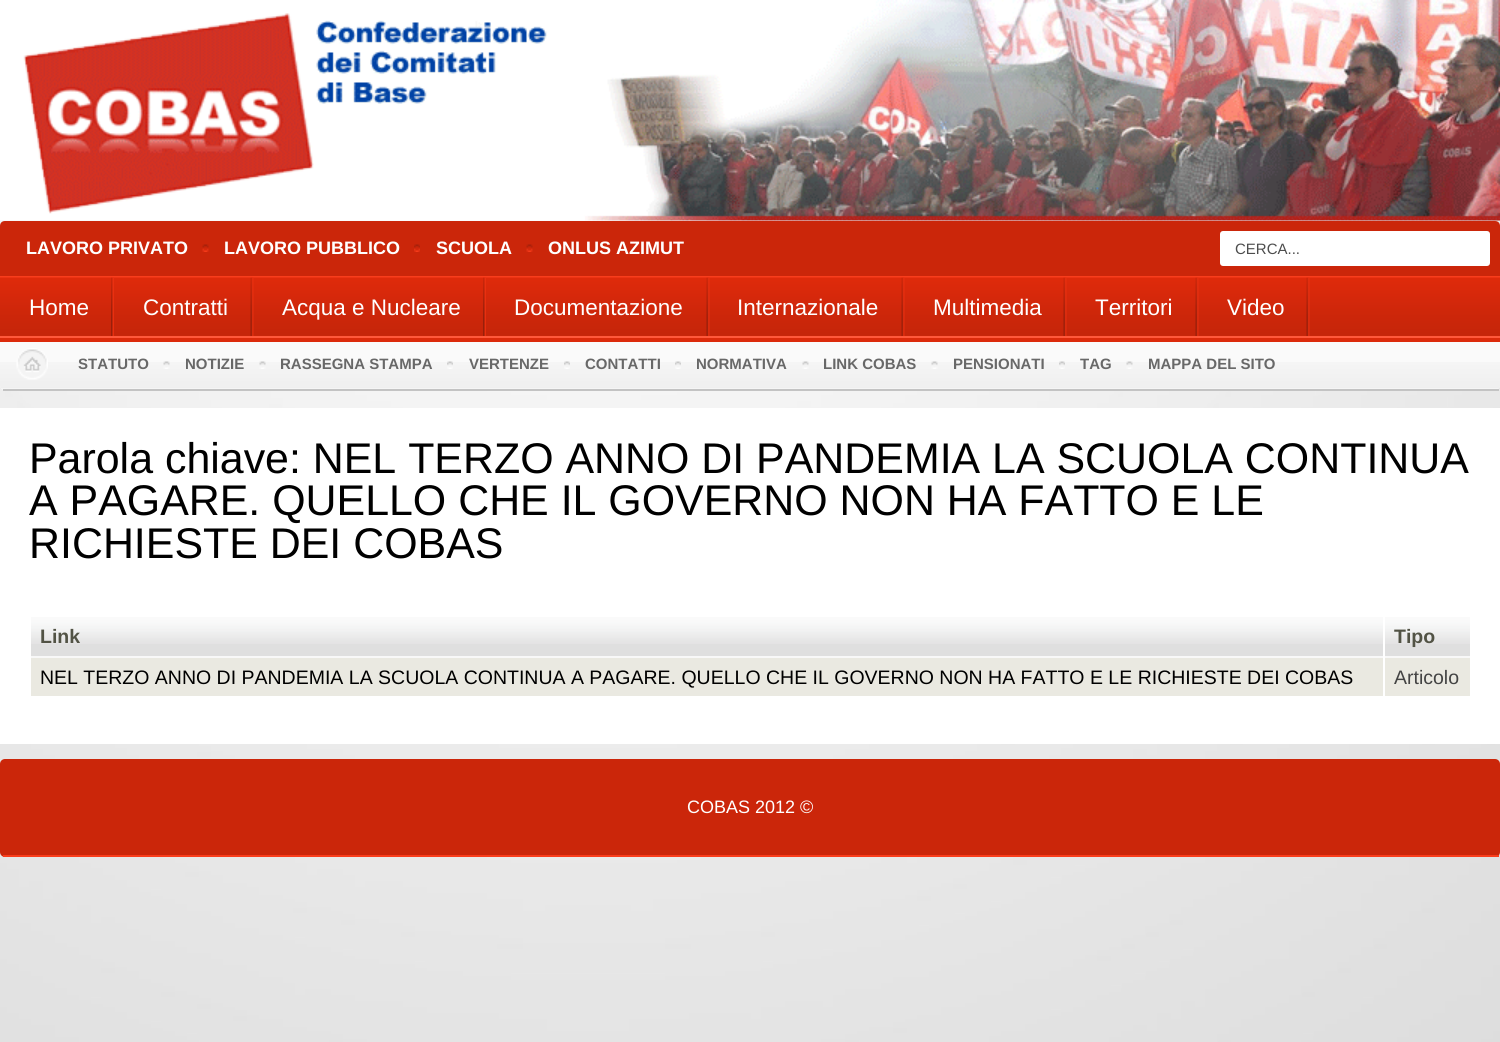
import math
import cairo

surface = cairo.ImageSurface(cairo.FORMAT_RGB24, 1500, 1042)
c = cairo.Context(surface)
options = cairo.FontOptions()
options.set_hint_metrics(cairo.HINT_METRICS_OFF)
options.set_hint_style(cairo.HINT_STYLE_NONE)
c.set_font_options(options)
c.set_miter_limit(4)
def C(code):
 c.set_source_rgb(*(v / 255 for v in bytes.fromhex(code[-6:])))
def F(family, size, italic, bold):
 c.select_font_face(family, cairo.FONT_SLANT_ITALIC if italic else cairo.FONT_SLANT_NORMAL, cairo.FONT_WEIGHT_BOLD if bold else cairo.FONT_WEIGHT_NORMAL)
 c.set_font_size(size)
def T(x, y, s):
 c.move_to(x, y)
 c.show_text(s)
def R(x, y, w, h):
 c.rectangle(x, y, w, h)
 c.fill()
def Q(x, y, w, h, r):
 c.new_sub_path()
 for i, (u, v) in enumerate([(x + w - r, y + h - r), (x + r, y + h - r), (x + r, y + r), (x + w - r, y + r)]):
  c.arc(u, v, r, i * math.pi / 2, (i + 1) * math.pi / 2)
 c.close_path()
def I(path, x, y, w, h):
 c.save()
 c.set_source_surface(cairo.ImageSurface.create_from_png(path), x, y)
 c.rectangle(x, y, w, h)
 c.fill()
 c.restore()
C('ffffff')
c.paint()
I('1.png',0,220,1500,822)
I('2.png',0,0,1500,221)
C('cb260a')
c.new_path()
c.move_to(5,221)
c.line_to(1495,221)
c.curve_to(1498,221,1500,223,1500,226)
c.line_to(1500,278)
c.line_to(0,278)
c.line_to(0,226)
c.curve_to(0,223,2,221,5,221)
c.close_path()
c.fill()
C('f93d1c')
R(0,276,1500,2)
F('Liberation Sans',18,0,1)
C('ffffff')
T(26,254,'LAVORO PRIVATO')
I('3.png',202,244,7,8)
T(224,254,'LAVORO PUBBLICO')
I('4.png',414,244,6,8)
T(436,254,'SCUOLA')
I('3.png',526,244,7,8)
T(548,254,'ONLUS AZIMUT')
Q(1220,231,270,35,3)
c.fill()
F('Liberation Sans',15,0,0)
C('4d4d4d')
T(1235,254,'CERCA...')
I('5.png',0,277,1500,59)
C('dc2a0b')
R(0,338,1500,4)
C('ff583b')
R(0,336,1500,2)
I('6.png',111,277,3,59)
F('Liberation Sans',22.5,0,0)
C('ffffff')
T(29,315,'Home')
I('7.png',250,277,4,59)
T(143,315,'Contratti')
I('8.png',483,277,3,59)
T(282,315,'Acqua e Nucleare')
I('7.png',706,277,4,59)
T(514,315,'Documentazione')
I('7.png',901,277,4,59)
T(737,315,'Internazionale')
I('7.png',1063,277,4,59)
T(933,315,'Multimedia')
I('7.png',1195,277,4,59)
T(1095,315,'Territori')
I('7.png',1306,277,4,59)
T(1227,315,'Video')
C('fafafa')
c.new_path()
c.move_to(0,342)
c.line_to(1500,342)
c.line_to(1500,385)
c.curve_to(1500,388,1498,390,1495,390)
c.line_to(5,390)
c.curve_to(2,390,0,388,0,385)
c.close_path()
c.fill()
I('9.png',0,362,1500,27)
C('c3c3c3')
R(3,389,1496,2)
I('10.png',16,348,32,32)
F('Liberation Sans',15,0,1)
C('686868')
T(78,369,'STATUTO')
I('11.png',163,361,7,8)
T(185,369,'NOTIZIE')
I('11.png',259,361,7,8)
T(280,369,'RASSEGNA STAMPA')
I('12.png',447,361,6,8)
T(469,369,'VERTENZE')
I('12.png',564,361,6,8)
T(585,369,'CONTATTI')
I('13.png',675,361,6,8)
T(696,369,'NORMATIVA')
I('11.png',802,361,7,8)
T(823,369,'LINK COBAS')
I('11.png',931,361,7,8)
T(953,369,'PENSIONATI')
I('12.png',1059,361,6,8)
T(1080,369,'TAG')
I('11.png',1126,361,7,8)
T(1148,369,'MAPPA DEL SITO')
C('ffffff')
R(0,408,1500,336)
F('Liberation Sans',42.9,0,0)
C('000000')
T(29,473,'Parola chiave: NEL TERZO ANNO DI PANDEMIA LA SCUOLA CONTINUA')
T(29,515,'A PAGARE. QUELLO CHE IL GOVERNO NON HA FATTO E LE')
T(29,558,'RICHIESTE DEI COBAS')
C('dfdfdf')
R(31,644,1352,12)
I('14.png',31,617,1352,27)
F('Liberation Sans',19.5,0,1)
C('525345')
T(40,643,'Link')
C('dfdfdf')
R(1385,644,85,12)
I('15.png',1385,617,85,27)
C('525345')
T(1394,643,'Tipo')
C('eae9e1')
R(31,658,1439,38)
C('f8f8f8')
R(29,656,1443,2)
C('ffffff')
R(1383,656,2,42)
R(29,656,2,2)
F('Liberation Sans',19.5,0,0)
C('000000')
T(40,684,'NEL TERZO ANNO DI PANDEMIA LA SCUOLA CONTINUA A PAGARE. QUELLO CHE IL GOVERNO NON HA FATTO E LE RICHIESTE DEI COBAS')
C('ffffff')
R(1470,656,2,2)
C('444444')
T(1394,684,'Articolo')
C('cb260a')
Q(0,759,1500,98,5)
c.fill()
C('f93d1c')
R(3,855,1496,2)
F('Liberation Sans',18,0,0)
C('ffffff')
T(687,813,'COBAS 2012 ©')
surface.write_to_png('o.png')
